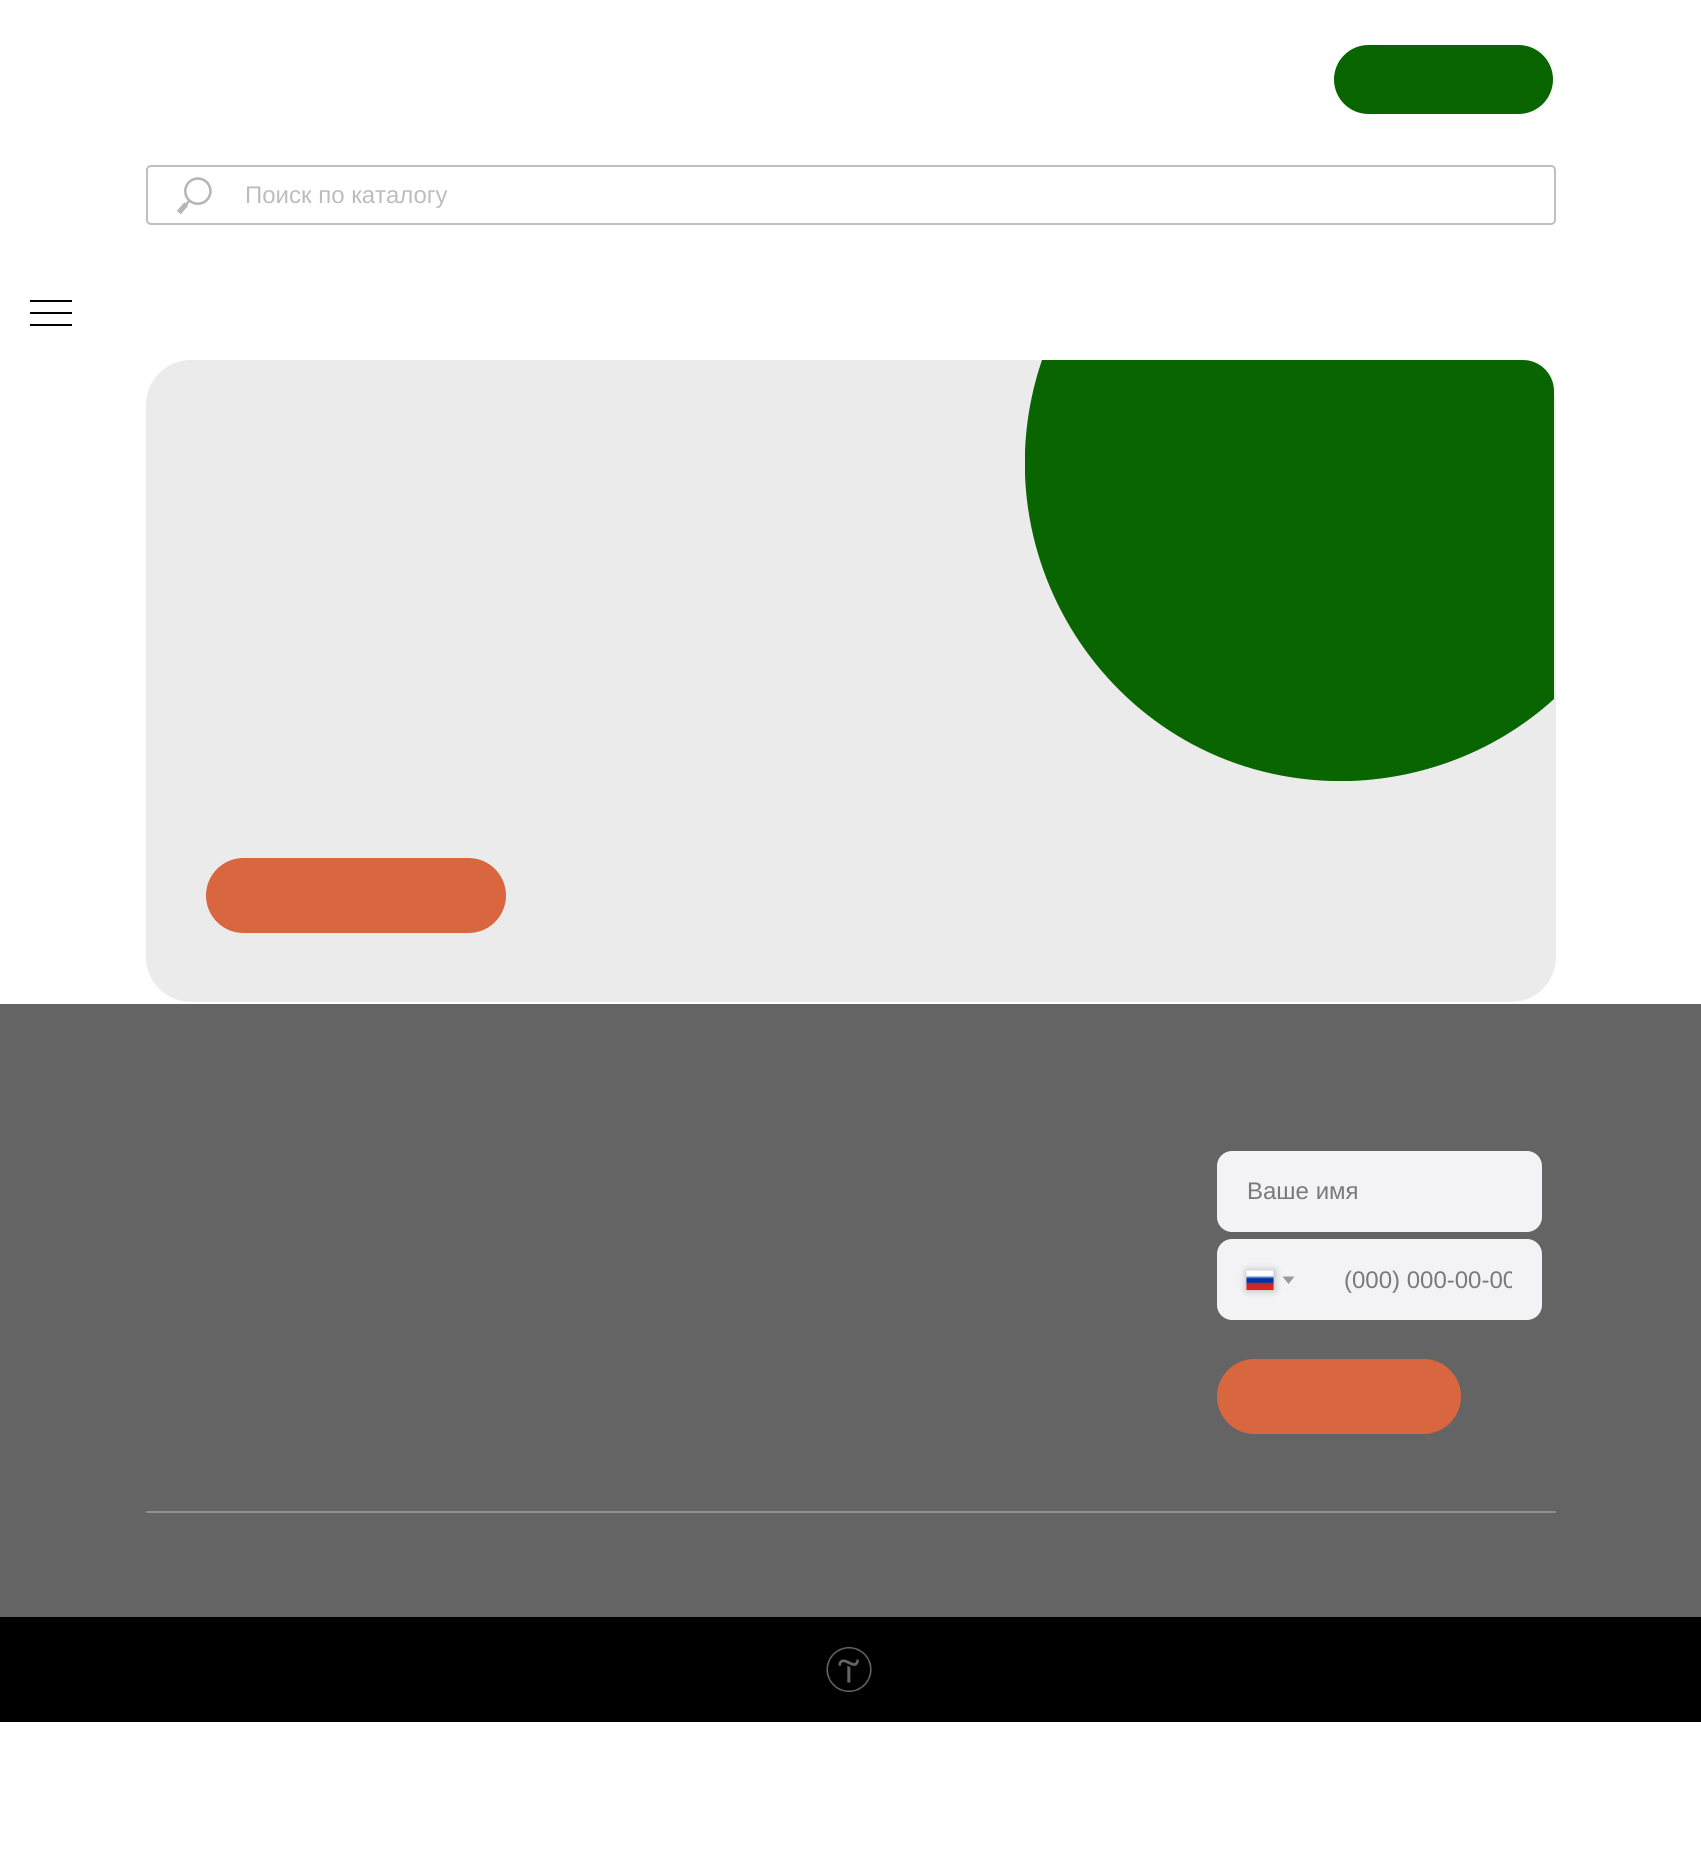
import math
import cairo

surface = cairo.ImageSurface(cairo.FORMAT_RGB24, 1701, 1857)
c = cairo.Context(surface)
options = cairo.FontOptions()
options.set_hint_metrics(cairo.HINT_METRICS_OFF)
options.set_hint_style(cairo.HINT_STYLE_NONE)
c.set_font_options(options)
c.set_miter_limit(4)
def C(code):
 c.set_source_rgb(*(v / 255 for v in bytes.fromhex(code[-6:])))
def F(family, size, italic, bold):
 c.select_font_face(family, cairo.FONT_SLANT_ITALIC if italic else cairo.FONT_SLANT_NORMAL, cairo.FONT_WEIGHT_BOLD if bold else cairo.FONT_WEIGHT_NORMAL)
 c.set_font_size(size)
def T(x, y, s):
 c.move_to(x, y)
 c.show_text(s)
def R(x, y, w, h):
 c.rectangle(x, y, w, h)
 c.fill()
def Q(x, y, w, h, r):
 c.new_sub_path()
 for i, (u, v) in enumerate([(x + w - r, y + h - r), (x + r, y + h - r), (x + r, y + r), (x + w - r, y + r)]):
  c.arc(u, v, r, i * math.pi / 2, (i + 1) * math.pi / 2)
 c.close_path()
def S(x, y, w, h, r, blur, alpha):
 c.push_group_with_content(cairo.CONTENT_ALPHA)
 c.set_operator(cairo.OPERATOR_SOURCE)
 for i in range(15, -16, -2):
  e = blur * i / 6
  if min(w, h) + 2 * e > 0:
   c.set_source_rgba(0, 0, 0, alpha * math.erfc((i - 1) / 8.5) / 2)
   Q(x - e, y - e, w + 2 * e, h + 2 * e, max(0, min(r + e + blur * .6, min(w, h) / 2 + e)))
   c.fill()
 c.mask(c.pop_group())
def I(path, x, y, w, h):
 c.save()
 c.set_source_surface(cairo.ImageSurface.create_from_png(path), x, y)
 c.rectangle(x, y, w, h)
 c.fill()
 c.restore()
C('ffffff')
c.paint()
C('096500')
Q(1334,45,219,69,34.5)
c.fill()
Q(147,166,1408,58,4)
C('c0c0c0')
c.stroke()
I('1.png',177,177,35,38)
F('Liberation Sans',24,0,0)
C('bdbdbd')
T(245,203,'Поиск по каталогу')
C('000000')
R(30,300,42,2)
R(30,312,42,2)
R(30,324,42,2)
C('ebebeb')
Q(146,360,1410,642,45)
c.fill()
c.save()
c.rectangle(1025,360,529,422)
c.clip()
C('096500')
c.new_path()
c.move_to(1331,781)
c.line_to(1351,781)
c.curve_to(1429,778,1500,748,1554,699)
c.line_to(1554,391)
c.curve_to(1554,374,1540,360,1523,360)
c.line_to(1042,360)
c.curve_to(974,559,1115,774,1331,781)
c.close_path()
c.fill()
c.restore()
C('d8663f')
Q(206,858,300,75,37.5)
c.fill()
C('646464')
R(0,1004,1701,613)
C('f3f3f5')
Q(1217,1151,325,81,15)
c.fill()
C('7a7a7b')
T(1247,1199,'Ваше имя')
C('f3f3f5')
Q(1217,1239,325,81,15)
c.fill()
C('000000')
S(1247,1271,27,19,0,4,.3)
C('c5c5c5')
R(1273,1271,1,19)
I('2.png',1246,1270,28,20)
C('9a9a9a')
c.new_path()
c.move_to(1282.5,1276.5)
c.line_to(1294.5,1276.5)
c.line_to(1288.5,1284)
c.close_path()
c.fill()
c.save()
c.rectangle(1344,1266,168,27)
c.clip()
C('7a7a7b')
T(1344,1288,'(000) 000-00-00')
c.restore()
C('d8663f')
Q(1217,1359,244,75,37.5)
c.fill()
C('8f8f8f')
R(146,1511,1410,2)
C('000000')
R(0,1617,1701,105)
I('3.png',826,1647,46,45)
surface.write_to_png('o.png')
